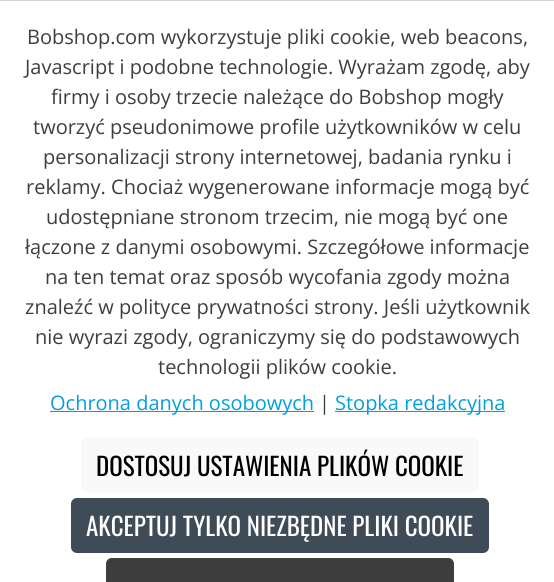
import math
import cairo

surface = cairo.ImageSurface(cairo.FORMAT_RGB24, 554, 582)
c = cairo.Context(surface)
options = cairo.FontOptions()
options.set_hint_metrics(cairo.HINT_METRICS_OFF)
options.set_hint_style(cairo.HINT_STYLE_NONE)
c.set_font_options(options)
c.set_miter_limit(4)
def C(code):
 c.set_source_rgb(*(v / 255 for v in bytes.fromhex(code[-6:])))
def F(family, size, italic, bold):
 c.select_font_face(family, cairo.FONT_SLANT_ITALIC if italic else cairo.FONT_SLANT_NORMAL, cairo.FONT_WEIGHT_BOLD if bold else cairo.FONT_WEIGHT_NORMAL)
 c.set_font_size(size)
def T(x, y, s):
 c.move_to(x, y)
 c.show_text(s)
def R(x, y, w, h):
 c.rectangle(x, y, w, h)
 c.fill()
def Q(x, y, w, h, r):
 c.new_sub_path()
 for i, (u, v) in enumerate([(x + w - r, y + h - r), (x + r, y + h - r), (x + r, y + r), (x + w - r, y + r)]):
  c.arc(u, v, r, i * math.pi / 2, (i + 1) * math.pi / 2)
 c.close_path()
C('ffffff')
c.paint()
C('d3d3d3')
R(0,0,554,1)
F('Open Sans',20,0,0)
C('3e3e3e')
T(27,44,'Bobshop.com wykorzystuje pliki cookie, web beacons,')
T(25,74,'Javascript i podobne technologie. Wyrażam zgodę, aby')
T(51,104,'firmy i osoby trzecie należące do Bobshop mogły')
T(33,134,'tworzyć pseudonimowe profile użytkowników w celu')
T(43,164,'personalizacji strony internetowej, badania rynku i')
T(26,194,'reklamy. Chociaż wygenerowane informacje mogą być')
T(46,224,'udostępniane stronom trzecim, nie mogą być one')
T(25,254,'łączone z danymi osobowymi. Szczegółowe informacje')
T(45,284,'na ten temat oraz sposób wycofania zgody można')
T(25,314,'znaleźć w polityce prywatności strony. Jeśli użytkownik')
T(35,344,'nie wyrazi zgody, ograniczymy się do podstawowych')
T(158,374,'technologii plików cookie.')
C('009fe2')
R(50,411,264,1)
T(50,410,'Ochrona danych osobowych')
C('3e3e3e')
T(319,410,'|')
C('009fe2')
R(335,411,170,1)
T(335,410,'Stopka redakcyjna')
C('f9f9f9')
Q(81,438,398,55,6)
c.fill()
F('Oswald',25,0,0)
C('000000')
T(96,476,'DOSTOSUJ USTAWIENIA PLIKÓW COOKIE')
C('404b58')
Q(71,498,418,55,6)
c.fill()
C('ffffff')
T(86,536,'AKCEPTUJ TYLKO NIEZBĘDNE PLIKI COOKIE')
C('3e3e3e')
c.new_path()
c.move_to(112,558)
c.line_to(448,558)
c.curve_to(451.5,558,454,560.5,454,564)
c.line_to(454,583)
c.line_to(106,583)
c.line_to(106,564)
c.curve_to(106,560.5,108.5,558,112,558)
c.close_path()
c.fill()
surface.write_to_png('o.png')
